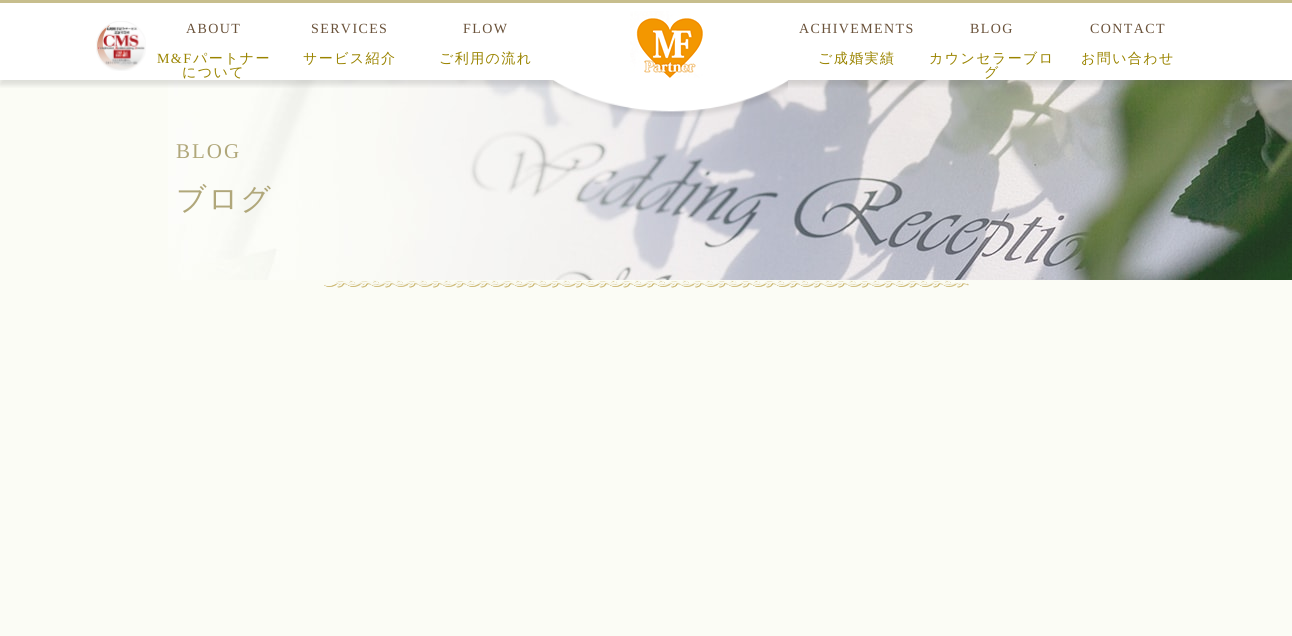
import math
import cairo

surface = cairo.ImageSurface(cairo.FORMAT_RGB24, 1292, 636)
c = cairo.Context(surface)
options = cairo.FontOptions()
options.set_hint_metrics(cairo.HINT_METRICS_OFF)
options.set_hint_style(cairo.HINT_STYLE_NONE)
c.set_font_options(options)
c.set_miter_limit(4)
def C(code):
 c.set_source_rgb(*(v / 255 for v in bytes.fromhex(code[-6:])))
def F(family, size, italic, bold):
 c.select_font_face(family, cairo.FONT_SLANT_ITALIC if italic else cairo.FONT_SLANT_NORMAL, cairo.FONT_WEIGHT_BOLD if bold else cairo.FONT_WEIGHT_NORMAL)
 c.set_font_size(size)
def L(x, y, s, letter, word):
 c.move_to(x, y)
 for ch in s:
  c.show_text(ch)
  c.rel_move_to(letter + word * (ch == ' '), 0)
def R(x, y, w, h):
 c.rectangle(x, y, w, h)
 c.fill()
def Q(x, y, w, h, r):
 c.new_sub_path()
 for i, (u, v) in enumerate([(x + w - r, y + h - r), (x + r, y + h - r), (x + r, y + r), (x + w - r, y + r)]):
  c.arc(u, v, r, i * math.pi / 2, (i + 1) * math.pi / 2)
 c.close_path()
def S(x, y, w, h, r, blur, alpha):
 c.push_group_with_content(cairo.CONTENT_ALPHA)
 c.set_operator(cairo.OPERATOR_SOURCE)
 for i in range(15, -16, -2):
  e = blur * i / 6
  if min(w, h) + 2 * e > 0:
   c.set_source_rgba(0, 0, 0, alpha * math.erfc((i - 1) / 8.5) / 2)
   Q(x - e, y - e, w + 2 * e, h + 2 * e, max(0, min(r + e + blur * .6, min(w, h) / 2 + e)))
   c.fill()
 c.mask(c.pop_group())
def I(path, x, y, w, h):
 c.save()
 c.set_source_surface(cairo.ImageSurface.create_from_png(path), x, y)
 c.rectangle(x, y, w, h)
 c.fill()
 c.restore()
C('fbfcf5')
c.paint()
C('ffffff')
R(0,3,1292,77)
I('4.png',168,80,1124,200)
c.save()
c.rectangle(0,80,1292,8)
c.clip()
C('646464')
S(0,5,1292,80,0,2.5,.2)
c.restore()
C('c7be8d')
R(0,0,1292,3)
I('1.png',96,21,50,50)
F('Liberation Serif',14,0,0)
C('6a523a')
L(186,33,'ABOUT',1.4,0)
C('9a8400')
L(157,63,'M&F',1.4,0)
F('WenQuanYi Zen Hei Medium',14,0,0)
L(193,63,'パートナー',1.4,0)
L(182,77,'について',1.4,0)
F('Liberation Serif',14,0,0)
C('6a523a')
L(311,33,'SERVICES',1.4,0)
F('WenQuanYi Zen Hei Medium',14,0,0)
C('9a8400')
L(303,63,'サービス紹介',1.4,0)
F('Liberation Serif',14,0,0)
C('6a523a')
L(463,33,'FLOW',1.4,0)
F('WenQuanYi Zen Hei Medium',14,0,0)
C('9a8400')
L(439,63,'ご利用の流れ',1.4,0)
I('2.png',630,11,73,67)
I('3.png',553,80,235,37)
F('Liberation Serif',14,0,0)
C('6a523a')
L(799,33,'ACHIVEMENTS',1.4,0)
F('WenQuanYi Zen Hei Medium',14,0,0)
C('9a8400')
L(818,63,'ご成婚実績',1.4,0)
F('Liberation Serif',14,0,0)
C('6a523a')
L(970,33,'BLOG',1.4,0)
F('WenQuanYi Zen Hei Medium',14,0,0)
C('9a8400')
L(929,63,'カウンセラーブロ',1.4,0)
L(984,77,'グ',1.4,0)
F('Liberation Serif',14,0,0)
C('6a523a')
L(1090,33,'CONTACT',1.4,0)
F('WenQuanYi Zen Hei Medium',14,0,0)
C('9a8400')
L(1081,63,'お問い合わせ',1.4,0)
F('Liberation Serif',21,0,0)
C('b0a77a')
L(176,158,'BLOG',2,0)
F('WenQuanYi Zen Hei Medium',30,0,0)
L(176,209,'ブログ',1.4,0)
I('5.png',324,280,645,8)
surface.write_to_png('o.png')
